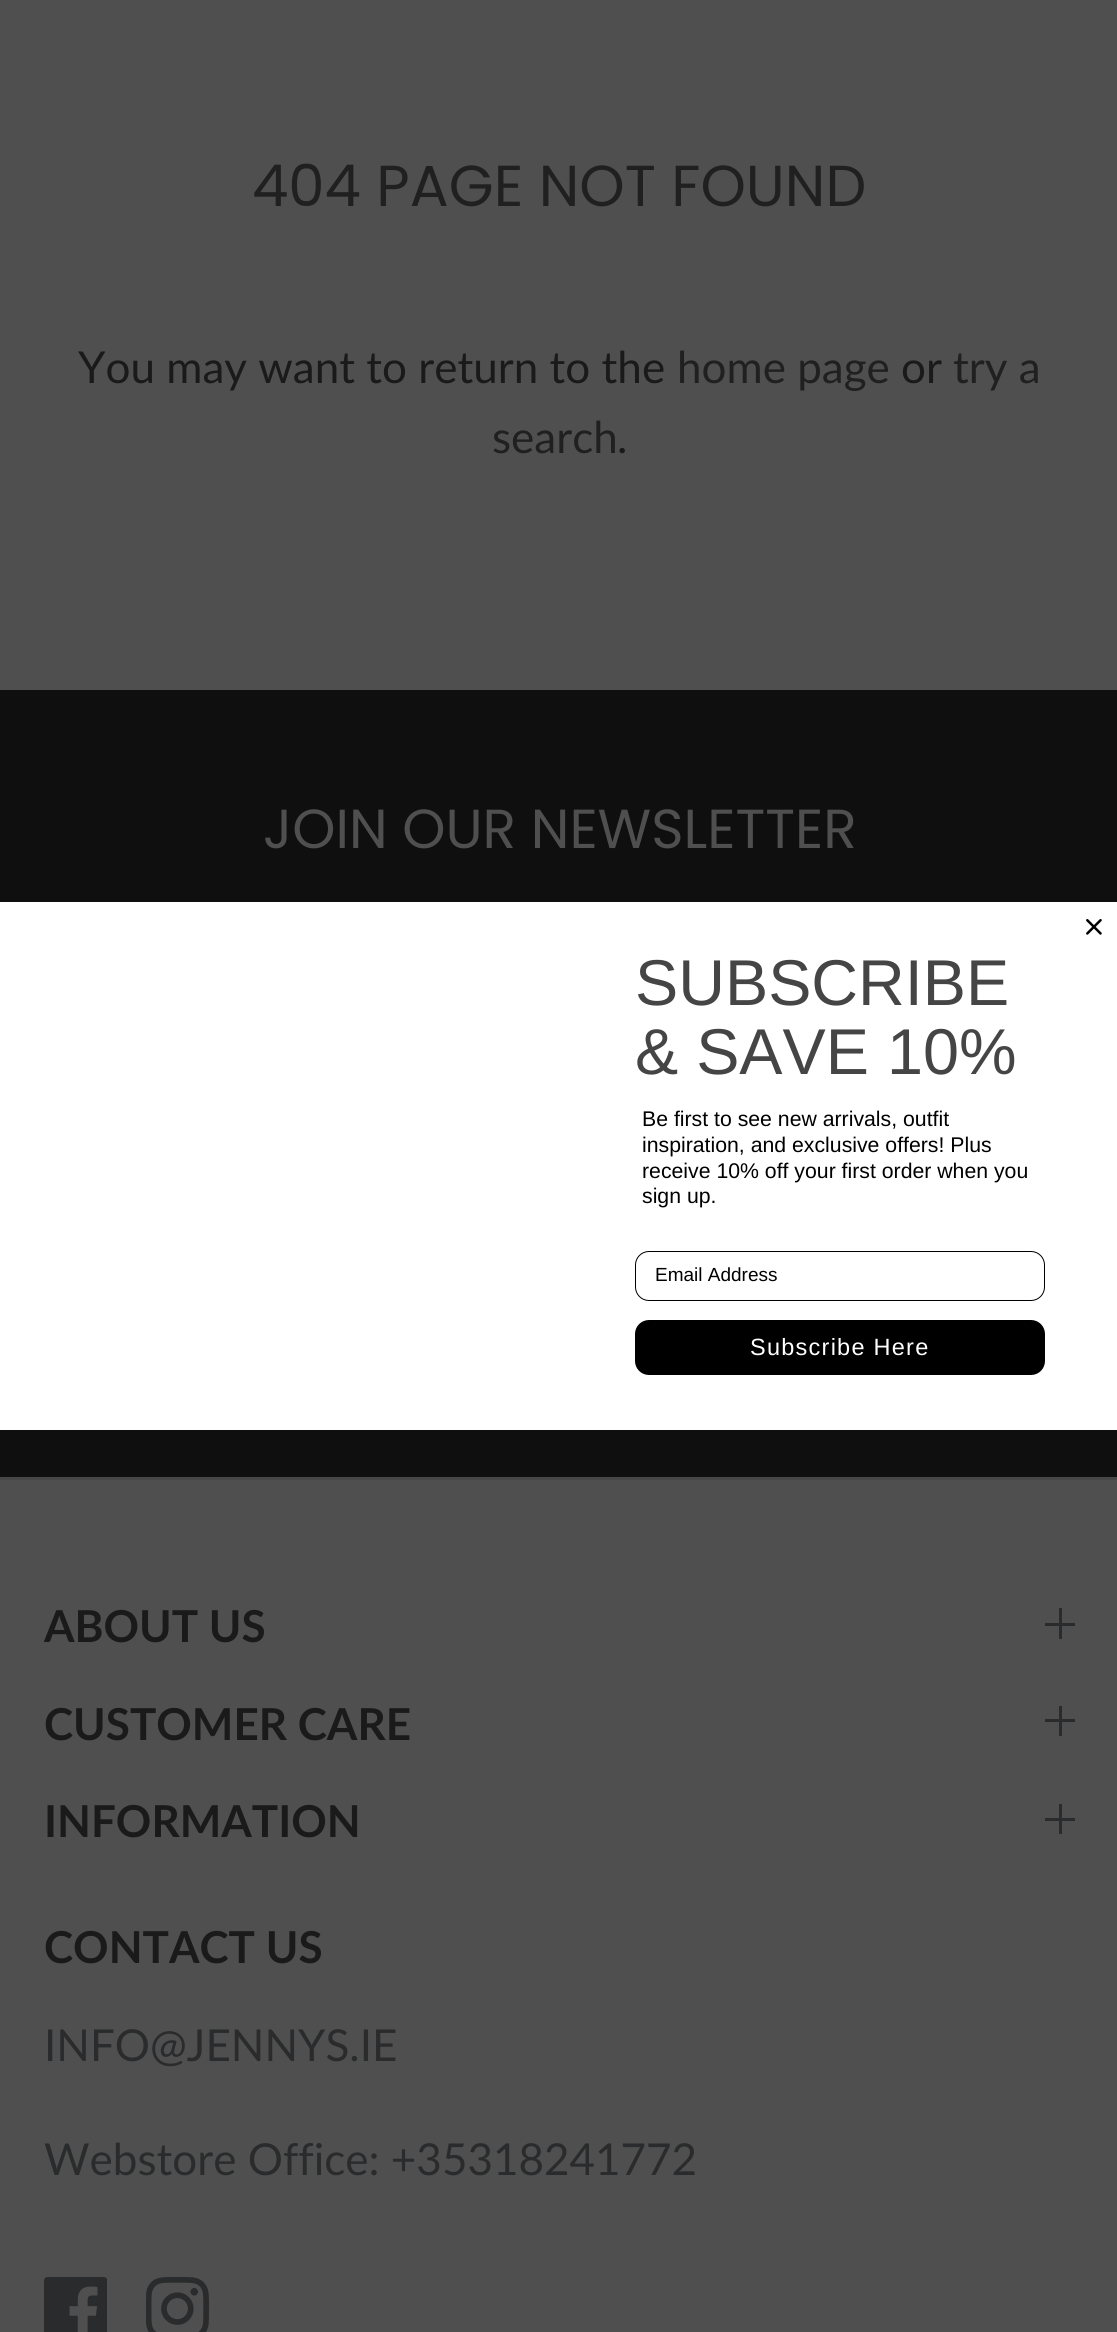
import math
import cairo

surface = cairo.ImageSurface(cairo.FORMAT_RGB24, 1117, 2332)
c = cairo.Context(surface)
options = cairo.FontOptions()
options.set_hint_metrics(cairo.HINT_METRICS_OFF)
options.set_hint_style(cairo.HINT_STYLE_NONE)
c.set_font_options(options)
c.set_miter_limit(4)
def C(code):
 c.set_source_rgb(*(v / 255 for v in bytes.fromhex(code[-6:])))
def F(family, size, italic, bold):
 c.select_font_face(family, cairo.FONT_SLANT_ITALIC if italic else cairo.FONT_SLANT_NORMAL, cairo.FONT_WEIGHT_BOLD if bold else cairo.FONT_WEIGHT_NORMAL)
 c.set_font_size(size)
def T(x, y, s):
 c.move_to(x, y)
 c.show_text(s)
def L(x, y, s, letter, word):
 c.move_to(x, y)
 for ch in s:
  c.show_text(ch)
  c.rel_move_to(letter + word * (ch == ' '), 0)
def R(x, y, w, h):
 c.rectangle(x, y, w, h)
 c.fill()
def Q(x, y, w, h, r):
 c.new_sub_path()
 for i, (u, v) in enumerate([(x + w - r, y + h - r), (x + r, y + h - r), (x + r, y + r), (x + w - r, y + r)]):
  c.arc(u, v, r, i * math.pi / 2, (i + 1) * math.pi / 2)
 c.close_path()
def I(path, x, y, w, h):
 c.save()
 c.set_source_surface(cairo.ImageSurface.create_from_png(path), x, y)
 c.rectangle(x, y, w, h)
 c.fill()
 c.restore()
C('4f4f4f')
c.paint()
F('Poppins',57.75,0,0)
C('202020')
T(252,206,'404 PAGE NOT FOUND')
F('Lato',44,0,0)
C('1a1a1a')
T(78,383,'You may want to return to the')
C('202020')
T(677,383,'home page')
C('1a1a1a')
T(901,383,'or')
C('202020')
T(953,383,'try a')
T(492,453,'search')
C('1a1a1a')
T(617,453,'.')
C('0f0f0f')
R(0,690,1117,787)
F('Poppins',55,0,0)
C('4f4f4f')
T(263,848,'JOIN OUR NEWSLETTER')
C('474747')
R(0,1477,1117,3)
F('Lato',44,0,1)
C('1a1a1a')
T(44,1642,'ABOUT US')
C('2a2b2c')
R(1059,1608,3,31)
R(1045,1623,30,3)
C('1a1a1a')
T(44,1740,'CUSTOMER CARE')
C('2a2b2c')
R(1059,1706,3,30)
R(1045,1719,30,3)
C('1a1a1a')
T(44,1837,'INFORMATION')
C('2a2b2c')
R(1059,1804,3,30)
R(1045,1818,30,3)
C('1a1a1a')
T(44,1963,'CONTACT US')
F('Lato',44,0,0)
C('2a2b2c')
T(44,2061,'INFO@JENNYS.IE')
T(44,2175,'Webstore Office: +35318241772')
I('1.png',44,2277,63,55)
I('2.png',146,2277,63,55)
C('ffffff')
R(0,902,1117,528)
I('3.png',1086,919,16,16)
F('Liberation Sans',64.75,0,0)
C('454545')
T(635,1005,'SUBSCRIBE')
T(635,1074,'& SAVE 10%')
F('Liberation Sans',21.25,0,0)
C('000000')
T(642,1126,'Be first to see new arrivals, outfit')
T(642,1152,'inspiration, and exclusive offers! Plus')
T(642,1178,'receive 10% off your first order when you')
T(642,1203,'sign up.')
Q(635.5,1251.5,409,49,13.5)
c.set_line_width(1)
c.stroke()
F('Liberation Sans',19,0,0)
T(655,1281,'Email Address')
Q(635,1320,410,55,14)
c.fill()
F('Liberation Sans',23.5,0,0)
C('ffffff')
L(750,1355,'Subscribe Here',1.25,0)
surface.write_to_png('o.png')
